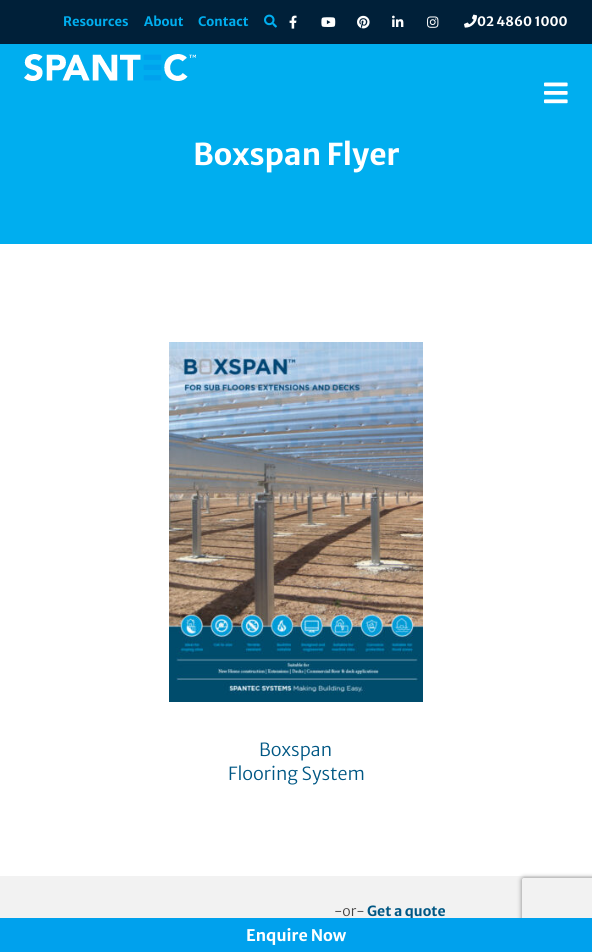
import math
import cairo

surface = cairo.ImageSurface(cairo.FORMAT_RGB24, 592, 952)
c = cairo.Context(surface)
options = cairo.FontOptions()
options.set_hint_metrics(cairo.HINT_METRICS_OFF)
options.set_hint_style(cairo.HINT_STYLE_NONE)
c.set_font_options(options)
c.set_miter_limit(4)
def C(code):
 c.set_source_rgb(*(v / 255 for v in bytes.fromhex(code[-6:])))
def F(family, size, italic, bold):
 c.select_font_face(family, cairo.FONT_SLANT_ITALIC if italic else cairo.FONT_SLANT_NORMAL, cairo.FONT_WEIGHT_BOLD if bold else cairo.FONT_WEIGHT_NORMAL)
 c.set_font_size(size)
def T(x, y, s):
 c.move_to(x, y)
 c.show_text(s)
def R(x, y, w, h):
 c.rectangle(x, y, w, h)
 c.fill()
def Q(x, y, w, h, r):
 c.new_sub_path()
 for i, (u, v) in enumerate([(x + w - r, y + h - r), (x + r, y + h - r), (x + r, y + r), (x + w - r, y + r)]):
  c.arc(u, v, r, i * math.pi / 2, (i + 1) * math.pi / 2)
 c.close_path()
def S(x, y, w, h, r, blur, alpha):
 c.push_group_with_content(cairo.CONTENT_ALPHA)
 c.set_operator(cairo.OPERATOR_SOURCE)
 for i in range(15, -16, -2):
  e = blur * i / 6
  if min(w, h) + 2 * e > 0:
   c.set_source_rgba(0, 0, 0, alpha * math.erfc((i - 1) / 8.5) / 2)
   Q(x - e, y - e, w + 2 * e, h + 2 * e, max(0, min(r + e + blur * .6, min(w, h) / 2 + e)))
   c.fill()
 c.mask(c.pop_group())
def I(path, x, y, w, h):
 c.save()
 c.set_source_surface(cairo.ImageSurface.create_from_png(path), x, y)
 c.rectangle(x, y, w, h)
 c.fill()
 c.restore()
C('002039')
c.paint()
F('Merriweather Sans',13,0,1)
C('00aeef')
T(63,26,'Resources')
T(144,26,'About')
T(198,26,'Contact')
I('1.png',264,14,13,14)
I('2.png',289,15,8,14)
I('3.png',321,17,15,10)
I('4.png',357,15,13,14)
I('5.png',392,15,12,12)
I('6.png',427,16,12,12)
I('7.png',464,14,13,14)
C('ffffff')
T(477,26,'02 4860 1000')
C('00aeef')
R(0,44,592,200)
I('8.png',24,54,172,27)
I('9.png',544,82,24,22)
F('Merriweather Sans',30,0,1)
C('ffffff')
T(193,165,'Boxspan Flyer')
R(0,244,592,632)
I('10.png',169,342,254,360)
F('Merriweather Sans Light',18,0,0)
C('005784')
T(259,756,'Boxspan')
T(228,780,'Flooring System')
C('f2f2f2')
R(0,876,592,42)
F('Merriweather Sans Light',14,0,0)
C('444444')
T(334,916,'-or-')
F('Merriweather Sans',14,0,1)
C('005784')
T(367,916,'Get a quote')
c.save()
c.set_fill_rule(cairo.FILL_RULE_EVEN_ODD)
c.new_path()
c.move_to(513,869)
c.line_to(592,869)
c.line_to(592,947)
c.line_to(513,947)
c.close_path()
c.move_to(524,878)
c.line_to(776,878)
c.curve_to(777,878,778,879,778,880)
c.line_to(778,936)
c.curve_to(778,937,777,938,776,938)
c.line_to(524,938)
c.curve_to(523,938,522,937,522,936)
c.line_to(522,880)
c.curve_to(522,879,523,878,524,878)
c.close_path()
c.clip()
C('808080')
S(522,878,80,60,2,2.5,1)
c.restore()
C('00a1ed')
R(0,918,592,34)
F('Merriweather Sans',16,0,1)
C('ffffff')
T(246,941,'Enquire Now')
surface.write_to_png('o.png')
